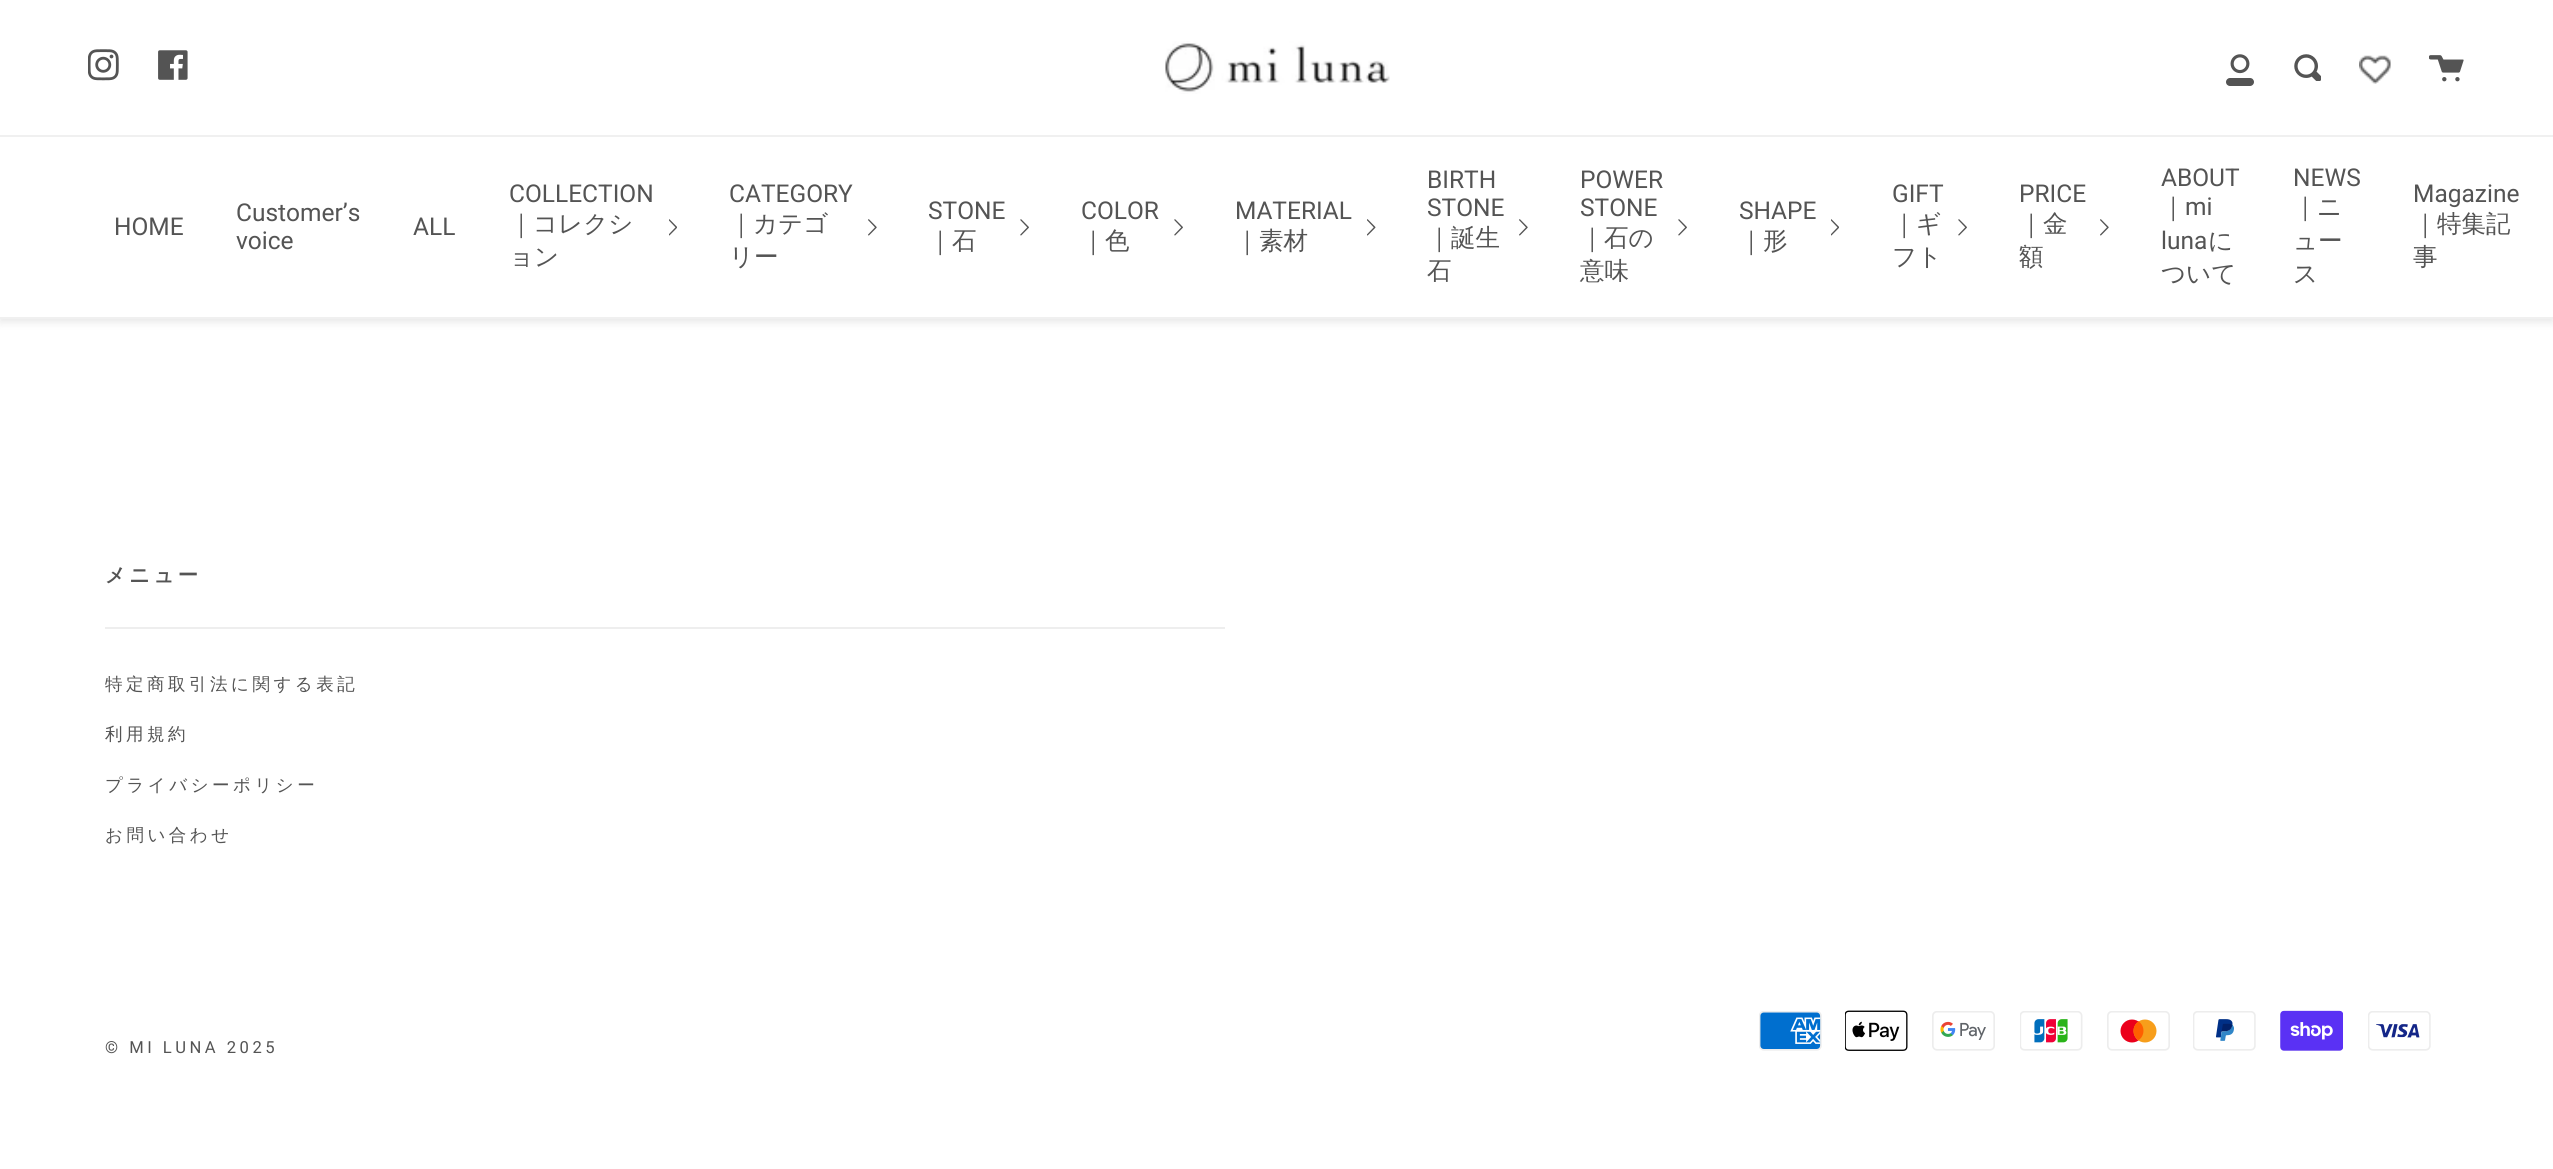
import math
import cairo

surface = cairo.ImageSurface(cairo.FORMAT_RGB24, 2553, 1169)
c = cairo.Context(surface)
options = cairo.FontOptions()
options.set_hint_metrics(cairo.HINT_METRICS_OFF)
options.set_hint_style(cairo.HINT_STYLE_NONE)
c.set_font_options(options)
c.set_miter_limit(4)
def C(code):
 c.set_source_rgb(*(v / 255 for v in bytes.fromhex(code[-6:])))
def F(family, size, italic, bold):
 c.select_font_face(family, cairo.FONT_SLANT_ITALIC if italic else cairo.FONT_SLANT_NORMAL, cairo.FONT_WEIGHT_BOLD if bold else cairo.FONT_WEIGHT_NORMAL)
 c.set_font_size(size)
def T(x, y, s):
 c.move_to(x, y)
 c.show_text(s)
def L(x, y, s, letter, word):
 c.move_to(x, y)
 for ch in s:
  c.show_text(ch)
  c.rel_move_to(letter + word * (ch == ' '), 0)
def R(x, y, w, h):
 c.rectangle(x, y, w, h)
 c.fill()
def Q(x, y, w, h, r):
 c.new_sub_path()
 for i, (u, v) in enumerate([(x + w - r, y + h - r), (x + r, y + h - r), (x + r, y + r), (x + w - r, y + r)]):
  c.arc(u, v, r, i * math.pi / 2, (i + 1) * math.pi / 2)
 c.close_path()
def S(x, y, w, h, r, blur, alpha):
 c.push_group_with_content(cairo.CONTENT_ALPHA)
 c.set_operator(cairo.OPERATOR_SOURCE)
 for i in range(15, -16, -2):
  e = blur * i / 6
  if min(w, h) + 2 * e > 0:
   c.set_source_rgba(0, 0, 0, alpha * math.erfc((i - 1) / 8.5) / 2)
   Q(x - e, y - e, w + 2 * e, h + 2 * e, max(0, min(r + e + blur * .6, min(w, h) / 2 + e)))
   c.fill()
 c.mask(c.pop_group())
def I(path, x, y, w, h):
 c.save()
 c.set_source_surface(cairo.ImageSurface.create_from_png(path), x, y)
 c.rectangle(x, y, w, h)
 c.fill()
 c.restore()
C('ffffff')
c.paint()
C('000000')
S(0,4,2553,318,0,4.5,.1)
C('ffffff')
R(0,0,2553,317)
C('f0f0f0')
R(0,317,2553,2)
I('1.png',88,49,31,32)
I('2.png',158,50,30,30)
I('3.png',1165,41,225,53)
I('4.png',2226,54,28,32)
I('5.png',2294,54,27,27)
I('6.png',2359,55,32,29)
I('7.png',2429,55,35,27)
R(0,135,2553,2)
F('Roboto',24.5,0,0)
C('545454')
T(114,235,'HOME')
T(236,221,'Customer’s')
T(236,249,'voice')
T(413,235,'ALL')
T(509,202,'COLLECTION')
F('WenQuanYi Zen Hei Medium',24.5,0,0)
T(509,232,'｜コレクシ')
T(509,265,'ョン')
I('8.png',669,219,8,17)
F('Roboto',24.5,0,0)
T(729,202,'CATEGORY')
F('WenQuanYi Zen Hei Medium',24.5,0,0)
T(729,232,'｜カテゴ')
T(729,265,'リー')
I('9.png',868,219,9,17)
F('Roboto',24.5,0,0)
T(928,219,'STONE')
F('WenQuanYi Zen Hei Medium',24.5,0,0)
T(928,249,'｜石')
I('10.png',1020,219,9,17)
F('Roboto',24.5,0,0)
T(1081,219,'COLOR')
F('WenQuanYi Zen Hei Medium',24.5,0,0)
T(1081,249,'｜色')
I('10.png',1174,219,9,17)
F('Roboto',24.5,0,0)
T(1235,219,'MATERIAL')
F('WenQuanYi Zen Hei Medium',24.5,0,0)
T(1235,249,'｜素材')
I('11.png',1367,219,9,17)
F('Roboto',24.5,0,0)
T(1427,188,'BIRTH')
T(1427,216,'STONE')
F('WenQuanYi Zen Hei Medium',24.5,0,0)
T(1427,246,'｜誕生')
T(1427,279,'石')
I('9.png',1519,219,9,17)
F('Roboto',24.5,0,0)
T(1580,188,'POWER')
T(1580,216,'STONE')
F('WenQuanYi Zen Hei Medium',24.5,0,0)
T(1580,246,'｜石の')
T(1580,279,'意味')
I('10.png',1678,219,9,17)
F('Roboto',24.5,0,0)
T(1739,219,'SHAPE')
F('WenQuanYi Zen Hei Medium',24.5,0,0)
T(1739,249,'｜形')
I('8.png',1831,219,8,17)
F('Roboto',24.5,0,0)
T(1892,202,'GIFT')
F('WenQuanYi Zen Hei Medium',24.5,0,0)
T(1892,232,'｜ギ')
T(1892,265,'フト')
I('10.png',1958,219,9,17)
F('Roboto',24.5,0,0)
T(2019,202,'PRICE')
F('WenQuanYi Zen Hei Medium',24.5,0,0)
T(2019,232,'｜金')
T(2019,265,'額')
I('9.png',2100,219,9,17)
F('Roboto',24.5,0,0)
T(2161,186,'ABOUT')
F('WenQuanYi Zen Hei Medium',24.5,0,0)
T(2161,215,'｜')
F('Roboto',24.5,0,0)
T(2185,215,'mi')
T(2161,249,'luna')
F('WenQuanYi Zen Hei Medium',24.5,0,0)
T(2208,249,'に')
T(2161,282,'ついて')
F('Roboto',24.5,0,0)
T(2293,186,'NEWS')
F('WenQuanYi Zen Hei Medium',24.5,0,0)
T(2293,215,'｜ニ')
T(2293,249,'ュー')
T(2293,282,'ス')
F('Roboto',24.5,0,0)
T(2413,202,'Magazine')
F('WenQuanYi Zen Hei Medium',24.5,0,0)
T(2413,232,'｜特集記')
T(2413,265,'事')
F('WenQuanYi Zen Hei',20.25,0,1)
L(105,582,'メニュー',3.5,0)
C('eeeeee')
R(105,627,1120,2)
F('WenQuanYi Zen Hei Medium',17.5,0,0)
C('545454')
L(105,690,'特定商取引法に関する表記',3.5,0)
L(105,740,'利用規約',3.5,0)
L(105,791,'プライバシーポリシー',3.5,0)
L(105,841,'お問い合わせ',3.5,0)
F('Roboto',16.6,0,0)
L(105,1053,'© MI LUNA 2025',3.5,0)
I('12.png',1759,1011,63,40)
I('13.png',1845,1010,63,41)
I('14.png',1932,1011,63,40)
I('15.png',2020,1011,63,40)
I('16.png',2107,1011,63,40)
I('17.png',2193,1011,63,40)
I('18.png',2280,1010,63,41)
I('19.png',2368,1011,63,40)
surface.write_to_png('o.png')
